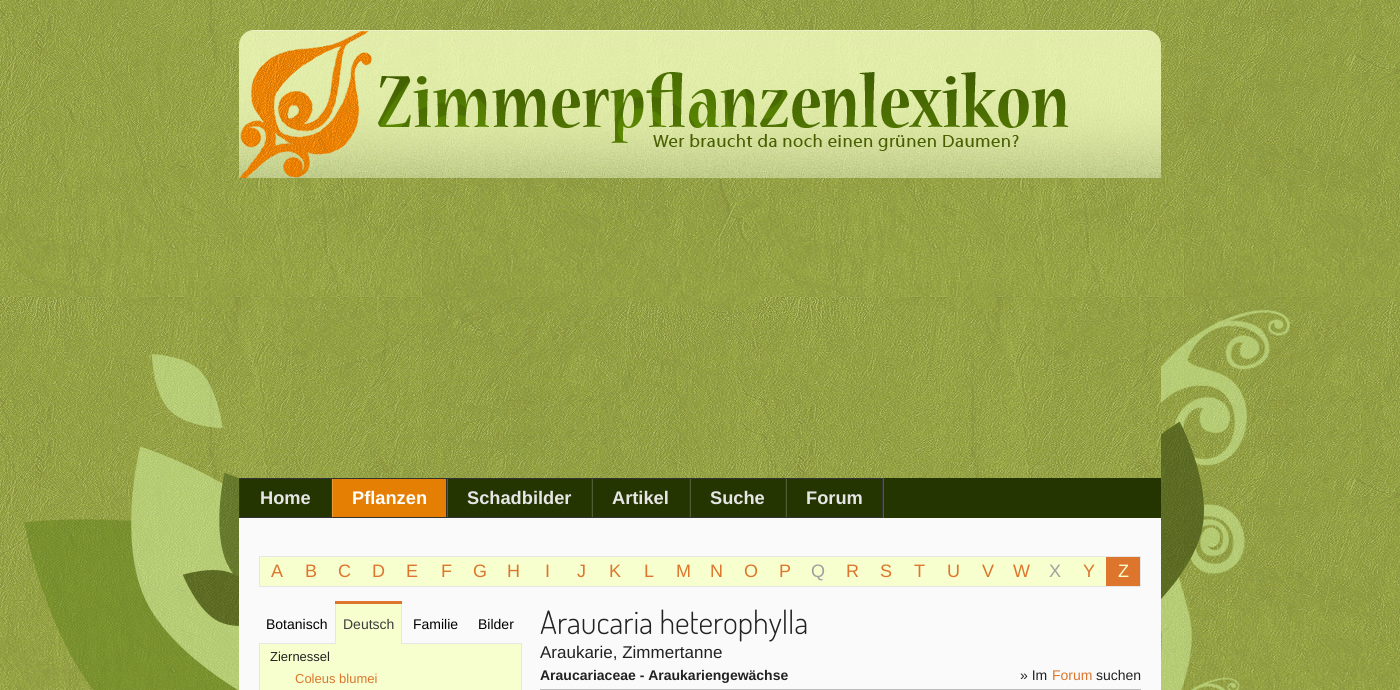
import math
import cairo

surface = cairo.ImageSurface(cairo.FORMAT_RGB24, 1400, 690)
c = cairo.Context(surface)
options = cairo.FontOptions()
options.set_hint_metrics(cairo.HINT_METRICS_OFF)
options.set_hint_style(cairo.HINT_STYLE_NONE)
c.set_font_options(options)
c.set_miter_limit(4)
def C(code):
 c.set_source_rgb(*(v / 255 for v in bytes.fromhex(code[-6:])))
def F(family, size, italic, bold):
 c.select_font_face(family, cairo.FONT_SLANT_ITALIC if italic else cairo.FONT_SLANT_NORMAL, cairo.FONT_WEIGHT_BOLD if bold else cairo.FONT_WEIGHT_NORMAL)
 c.set_font_size(size)
def T(x, y, s):
 c.move_to(x, y)
 c.show_text(s)
def R(x, y, w, h):
 c.rectangle(x, y, w, h)
 c.fill()
def I(path, x, y, w, h):
 c.save()
 c.set_source_surface(cairo.ImageSurface.create_from_png(path), x, y)
 c.rectangle(x, y, w, h)
 c.fill()
 c.restore()
C('ffffff')
c.paint()
I('1.png',0,0,1400,690)
I('2.png',239,30,922,148)
I('3.png',239,30,830,148)
I('4.png',24,354,215,336)
C('253501')
R(240,478,921,40)
C('333333')
R(239,478,546,1)
R(239,517,546,1)
R(239,478,1,40)
F('Liberation Sans',18.25,0,1)
C('e6e6e6')
T(260,504,'Home')
C('e57f04')
R(333,479,113,38)
C('ea9936')
R(332,479,1,38)
C('333333')
R(331,478,1,40)
C('ffffff')
T(352,504,'Pflanzen')
C('515d34')
R(447,479,1,38)
C('333333')
R(446,478,1,40)
C('e6e6e6')
T(467,504,'Schadbilder')
C('515d34')
R(592,479,1,38)
C('333333')
R(591,478,1,40)
C('e6e6e6')
T(612,504,'Artikel')
C('515d34')
R(690,479,1,38)
C('333333')
R(689,478,1,40)
C('e6e6e6')
T(710,504,'Suche')
C('515d34')
R(883,478,1,40)
R(786,479,1,38)
c.rectangle(785.5,478.5,97,39)
C('333333')
c.set_line_width(1)
c.stroke()
C('e6e6e6')
T(806,504,'Forum')
I('5.png',1161,310,129,380)
C('fafafa')
R(239,518,922,172)
C('f6ffcd')
R(260,557,846,29)
c.rectangle(259.5,556.5,881,30)
C('e6e6e6')
c.stroke()
F('Liberation Sans',18,0,0)
C('dd752c')
T(271,577,'A')
T(305,577,'B')
T(338,577,'C')
T(372,577,'D')
T(406,577,'E')
T(441,577,'F')
T(473,577,'G')
T(507,577,'H')
T(545,577,'I')
T(577,577,'J')
T(609,577,'K')
T(644,577,'L')
T(676,577,'M')
T(710,577,'N')
T(744,577,'O')
T(779,577,'P')
C('a0a0a0')
T(811,577,'Q')
C('dd752c')
T(846,577,'R')
T(880,577,'S')
T(914,577,'T')
T(947,577,'U')
T(982,577,'V')
T(1013,577,'W')
C('a0a0a0')
T(1049,577,'X')
C('dd752c')
T(1083,577,'Y')
R(1106,557,34,29)
C('f6ffcd')
T(1118,577,'Z')
C('e6e6e6')
R(259,643,263,1)
F('Liberation Sans',14,0,0)
C('000000')
T(266,629,'Botanisch')
C('dd752c')
R(335,601,67,3)
C('f6ffcd')
R(336,604,65,40)
C('e6e6e6')
R(401,604,1,40)
R(335,604,1,40)
C('3c3c3c')
T(343,629,'Deutsch')
C('000000')
T(413,629,'Familie')
T(478,629,'Bilder')
C('f6ffcd')
R(260,644,261,46)
C('e6e6e6')
R(521,644,1,46)
R(259,644,1,46)
F('Liberation Sans',13,0,0)
C('222222')
T(270,661,'Ziernessel')
C('dd752c')
T(295,683,'Coleus blumei')
F('Dosis Light',32,0,0)
C('222222')
T(540,634,'Araucaria heterophylla')
F('Liberation Sans',17,0,0)
T(540,658,'Araukarie, Zimmertanne')
C('bcbcbc')
R(540,689,601,1)
F('Liberation Sans',14,0,1)
C('222222')
T(540,680,'Araucariaceae - Araukariengewächse')
F('Liberation Sans',14,0,0)
T(1020,680,'» Im')
C('dd752c')
T(1052,680,'Forum')
C('222222')
T(1096,680,'suchen')
surface.write_to_png('o.png')
